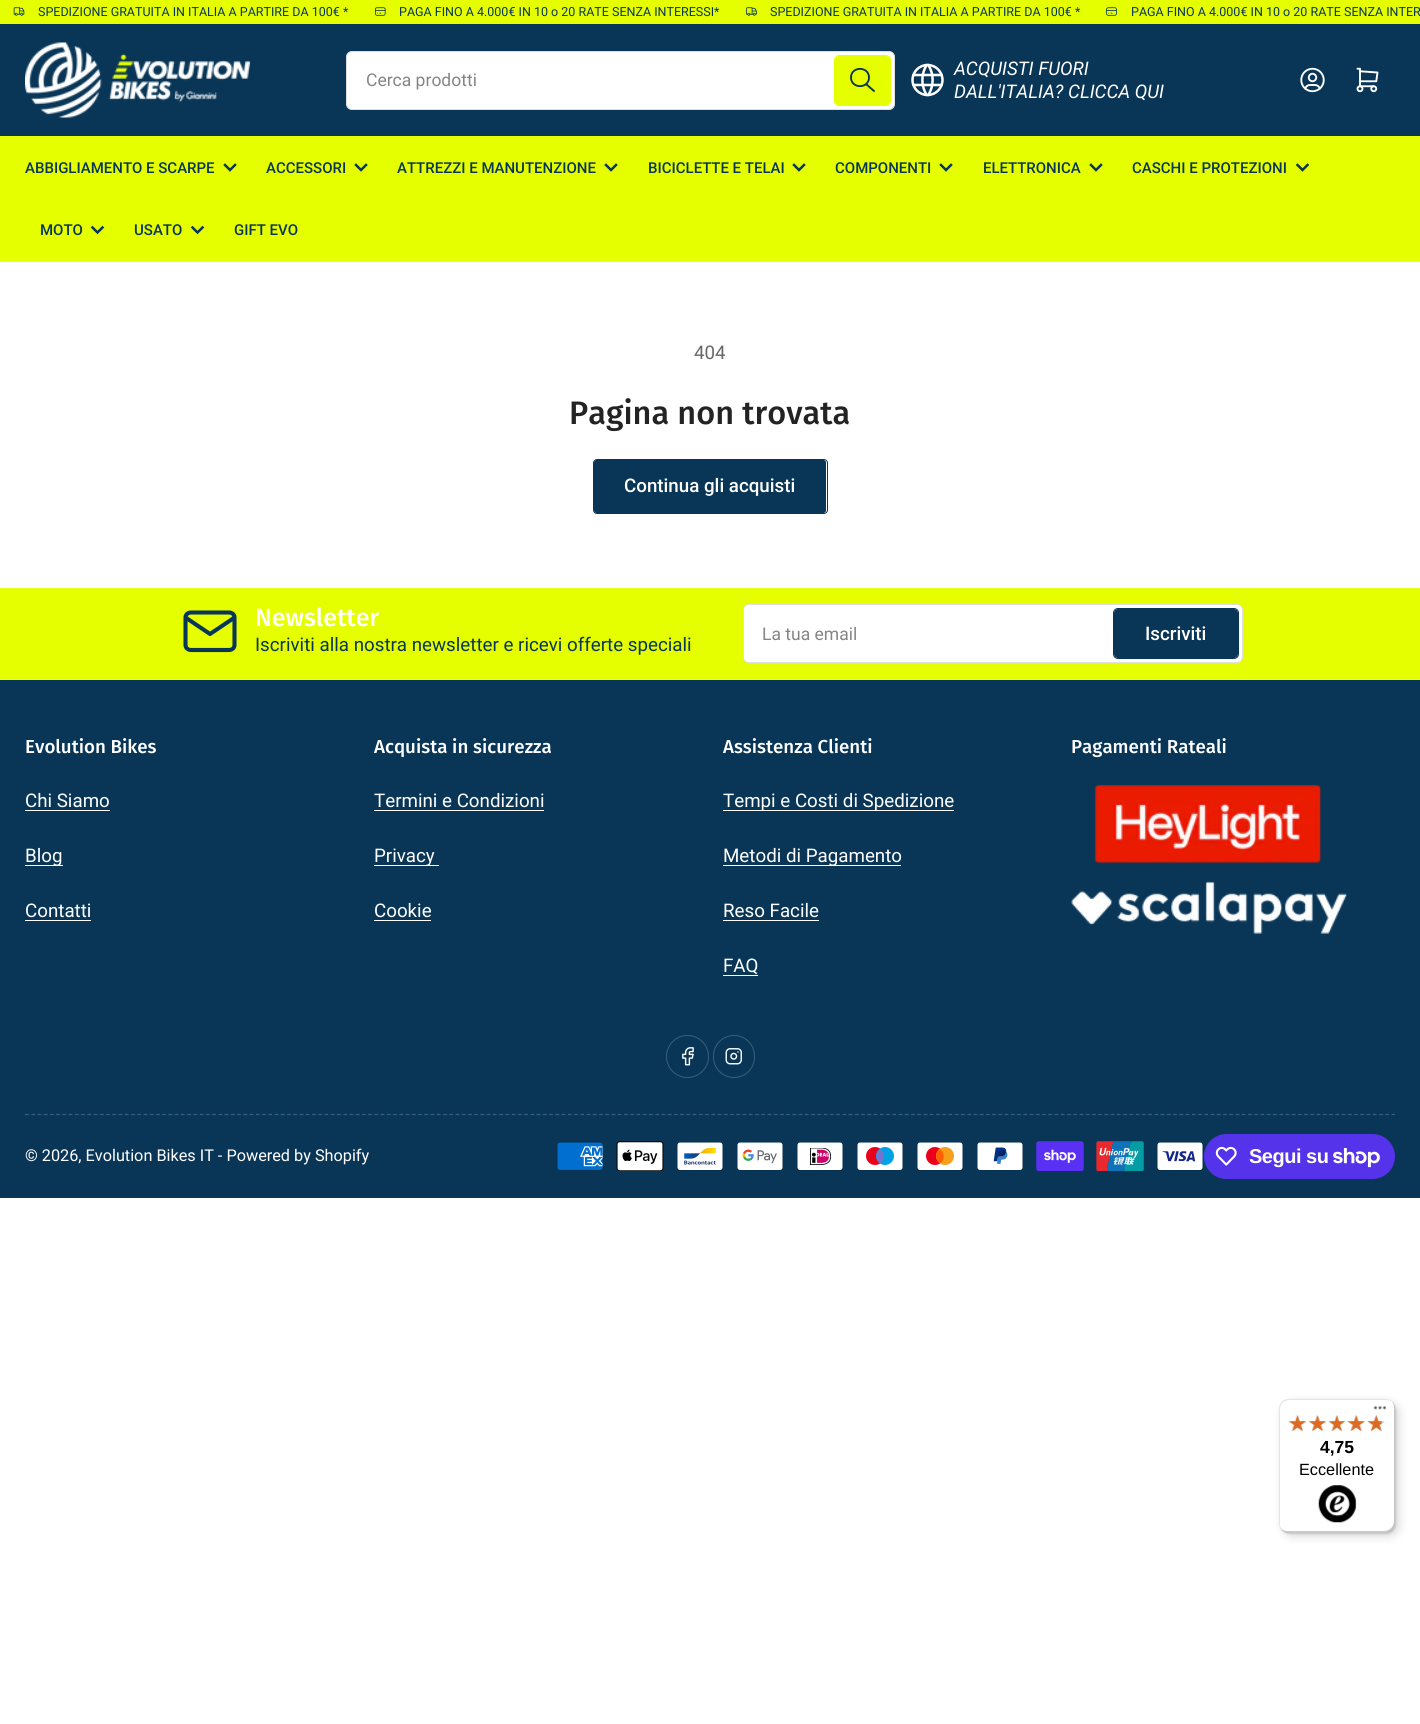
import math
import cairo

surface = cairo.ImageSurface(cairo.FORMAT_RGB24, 1420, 1724)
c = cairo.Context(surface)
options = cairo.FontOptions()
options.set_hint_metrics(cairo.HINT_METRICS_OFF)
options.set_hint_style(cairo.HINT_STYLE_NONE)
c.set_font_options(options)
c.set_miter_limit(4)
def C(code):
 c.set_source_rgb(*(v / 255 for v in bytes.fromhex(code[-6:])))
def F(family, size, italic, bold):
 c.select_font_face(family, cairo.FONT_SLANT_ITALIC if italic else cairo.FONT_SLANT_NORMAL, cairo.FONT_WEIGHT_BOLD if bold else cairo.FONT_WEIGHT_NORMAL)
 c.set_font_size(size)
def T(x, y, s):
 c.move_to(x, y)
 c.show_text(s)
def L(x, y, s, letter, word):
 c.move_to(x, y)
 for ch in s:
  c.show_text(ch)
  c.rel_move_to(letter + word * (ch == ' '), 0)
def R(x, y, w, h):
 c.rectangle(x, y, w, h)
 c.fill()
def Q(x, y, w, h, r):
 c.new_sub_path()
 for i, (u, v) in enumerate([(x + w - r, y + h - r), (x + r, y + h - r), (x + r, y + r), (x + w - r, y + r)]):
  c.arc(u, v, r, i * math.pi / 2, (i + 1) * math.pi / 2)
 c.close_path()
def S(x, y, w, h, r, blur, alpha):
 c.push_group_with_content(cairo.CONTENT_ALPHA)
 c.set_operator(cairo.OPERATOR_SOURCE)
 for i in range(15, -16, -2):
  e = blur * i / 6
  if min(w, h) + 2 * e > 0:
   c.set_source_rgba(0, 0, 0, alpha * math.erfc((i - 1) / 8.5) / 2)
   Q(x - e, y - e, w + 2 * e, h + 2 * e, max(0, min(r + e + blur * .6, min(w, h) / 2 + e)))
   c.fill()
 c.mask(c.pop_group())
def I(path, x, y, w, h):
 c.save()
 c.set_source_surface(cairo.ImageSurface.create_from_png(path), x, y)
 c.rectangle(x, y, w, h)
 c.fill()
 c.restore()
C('ffffff')
c.paint()
C('e6ff00')
R(0,0,1420,24)
I('1.png',13,7,12,9)
F('Roboto',12.5,0,0)
C('093657')
T(38,16,'SPEDIZIONE GRATUITA IN ITALIA A PARTIRE DA 100€ *')
I('2.png',375,7,11,9)
T(399,16,'PAGA FINO A 4.000€ IN 10 o 20 RATE SENZA INTERESSI*')
I('3.png',746,7,11,9)
T(770,16,'SPEDIZIONE GRATUITA IN ITALIA A PARTIRE DA 100€ *')
I('4.png',1106,7,11,9)
T(1131,16,'PAGA FINO A 4.000€ IN 10 o 20 RATE SENZA INTER')
R(0,24,1420,112)
I('5.png',25,42,225,76)
C('ffffff')
Q(346.5,51.5,548,58,5.5)
c.fill_preserve()
C('dfdfdf')
c.set_line_width(1)
c.stroke()
F('Roboto',17.5,0,0)
C('858585')
T(366,86,'Cerca prodotti')
Q(834.5,55.5,56,50,4.5)
C('e6ff00')
c.stroke()
Q(835,56,55,49,4)
c.fill()
c.new_path()
c.move_to(851,77.5)
c.curve_to(851,89,869,89,869,77.5)
c.curve_to(869,66,851,66,851,77.5)
c.move_to(874,91)
c.line_to(866,84)
C('093657')
c.set_line_width(1.9)
c.set_line_cap(cairo.LINE_CAP_ROUND)
c.set_line_join(cairo.LINE_JOIN_ROUND)
c.stroke()
I('6.png',911,63,33,34)
F('Roboto',18.75,1,0)
C('ffffff')
T(954,75,'ACQUISTI FUORI')
T(954,98,'DALL\'ITALIA? CLICCA QUI')
I('7.png',1300,67,25,26)
I('8.png',1356,67,23,26)
C('e6ff00')
R(0,136,1420,125)
F('Roboto Medium',15,0,0)
C('093657')
T(25,173,'ABBIGLIAMENTO E SCARPE')
c.new_path()
c.move_to(235,165)
c.line_to(230,170)
c.line_to(225,165)
c.set_line_width(2.5)
c.set_line_cap(cairo.LINE_CAP_SQUARE)
c.set_line_join(cairo.LINE_JOIN_MITER)
c.stroke()
T(266,173,'ACCESSORI')
c.new_path()
c.move_to(366,165)
c.line_to(361,170)
c.line_to(356,165)
c.stroke()
T(397,173,'ATTREZZI E MANUTENZIONE')
c.new_path()
c.move_to(616,165)
c.line_to(611,170)
c.line_to(606,165)
c.stroke()
T(648,173,'BICICLETTE E TELAI')
c.new_path()
c.move_to(804,165)
c.line_to(799,170)
c.line_to(794,165)
c.stroke()
T(835,173,'COMPONENTI')
c.new_path()
c.move_to(951,165)
c.line_to(946,170)
c.line_to(941,165)
c.stroke()
T(983,173,'ELETTRONICA')
c.new_path()
c.move_to(1101,165)
c.line_to(1096,170)
c.line_to(1091,165)
c.stroke()
T(1132,173,'CASCHI E PROTEZIONI')
c.new_path()
c.move_to(1307.5,165)
c.line_to(1302.5,170)
c.line_to(1297.5,165)
c.stroke()
T(40,235,'MOTO')
c.new_path()
c.move_to(102.5,227.5)
c.line_to(97.5,232.5)
c.line_to(92.5,227.5)
c.stroke()
T(134,235,'USATO')
c.new_path()
c.move_to(202.5,227.5)
c.line_to(197.5,232.5)
c.line_to(192.5,227.5)
c.stroke()
T(234,235,'GIFT EVO')
C('dfdfdf')
R(0,261,1420,1)
F('Roboto',18.75,0,0)
C('676767')
T(694,359,'404')
F('Fira Sans Medium',32.5,0,0)
C('232323')
T(569,424,'Pagina non trovata')
Q(593.5,459.5,234,54,3.5)
C('093657')
c.set_line_width(1)
c.set_line_cap(cairo.LINE_CAP_BUTT)
c.stroke()
Q(594,460,232,53,2.5)
c.fill()
F('Roboto Medium',18.75,0,0)
C('ffffff')
T(624,492,'Continua gli acquisti')
C('e6ff00')
R(0,589,1420,90)
C('e9ff1a')
R(0,588,1420,1)
R(0,679,1420,1)
c.new_path()
c.move_to(185.5,617.5)
c.curve_to(185.5,614.5,188,612.5,191,612.5)
c.line_to(229,612.5)
c.curve_to(232,612.5,234.5,614.5,234.5,617.5)
c.line_to(234.5,645)
c.curve_to(234.5,648,232,650,229,650)
c.line_to(191,650)
c.curve_to(188,650,185.5,648,185.5,645)
c.close_path()
c.move_to(185.5,617.5)
c.line_to(210,634)
c.line_to(234.5,617.5)
C('093657')
c.set_line_width(4.1)
c.set_line_cap(cairo.LINE_CAP_ROUND)
c.set_line_join(cairo.LINE_JOIN_ROUND)
c.stroke()
F('Fira Sans Medium',25,0,0)
C('ffffff')
T(255,626,'Newsletter')
F('Roboto',18.75,0,0)
C('093657')
T(255,651,'Iscriviti alla nostra newsletter e ricevi offerte speciali')
C('ffffff')
Q(743.5,604.5,499,58,5.5)
c.fill_preserve()
C('dfdfdf')
c.set_line_width(1)
c.set_line_cap(cairo.LINE_CAP_BUTT)
c.set_line_join(cairo.LINE_JOIN_MITER)
c.stroke()
F('Roboto',17.5,0,0)
C('858585')
T(762,640,'La tua email')
Q(1113.5,608.5,125,50,4.5)
C('093657')
c.stroke()
Q(1114,609,124,49,4)
c.fill()
F('Roboto Medium',18.75,0,0)
C('ffffff')
T(1145,640,'Iscriviti')
C('093657')
R(0,680,1420,518)
F('Fira Sans Medium',18.75,0,0)
C('ffffff')
T(25,753,'Evolution Bikes')
F('Roboto',18.75,0,0)
T(25,807,'Chi Siamo')
R(25,810,85,1)
R(25,865,38,1)
T(25,862,'Blog')
T(25,917,'Contatti')
R(25,920,66,1)
F('Fira Sans Medium',18.75,0,0)
T(374,753,'Acquista in sicurezza')
F('Roboto',18.75,0,0)
T(374,807,'Termini e Condizioni')
R(374,810,170,1)
R(374,865,65,1)
T(374,862,'Privacy')
T(374,917,'Cookie')
R(374,920,57,1)
F('Fira Sans Medium',18.75,0,0)
T(723,753,'Assistenza Clienti')
R(723,810,231,1)
F('Roboto',18.75,0,0)
T(723,807,'Tempi e Costi di Spedizione')
R(723,865,178,1)
T(723,862,'Metodi di Pagamento')
T(723,917,'Reso Facile')
R(723,920,96,1)
T(723,972,'FAQ')
R(723,975,35,1)
F('Fira Sans Medium',18.75,0,0)
T(1071,753,'Pagamenti Rateali')
I('9.png',1071,785,276,149)
c.arc(687.5,1056.5,21,0,2 * math.pi)
C('3a5e79')
c.stroke()
I('10.png',682,1047,12,19)
Q(713.5,1035.5,41,42,20.5)
c.stroke()
I('11.png',725,1048,17,17)
c.new_path()
c.move_to(25,1114.5)
c.line_to(1395,1114.5)
c.set_line_width(1.2)
c.set_dash([3.75,2.49])
c.stroke()
F('Roboto',16.25,0,0)
C('ffffff')
T(25,1161,'© 2026, Evolution Bikes IT - Powered by Shopify')
I('12.png',556,1141,48,30)
I('13.png',616,1141,48,30)
I('14.png',676,1141,48,30)
I('15.png',736,1141,48,30)
I('16.png',796,1141,48,30)
I('17.png',856,1141,48,30)
I('18.png',916,1141,48,30)
I('19.png',976,1141,48,30)
I('20.png',1036,1141,48,30)
I('21.png',1096,1141,48,30)
I('22.png',1156,1141,48,30)
C('5433eb')
Q(1204,1134,191,45,22.5)
c.fill()
I('23.png',1215,1146,22,20)
F('Liberation Sans',20,0,1)
C('ffffff')
L(1249,1163,'Segui su',-.5,0)
I('24.png',1333,1148,47,20)
C('000000')
S(1283,1403,116,133,10,5,.15)
S(1280,1400,116,134,10,1,.15)
C('ffffff')
Q(1279,1399,116,134,10)
c.fill()
C('e5e5e5')
c.new_path()
c.move_to(1290,1400)
c.line_to(1386,1400)
c.curve_to(1388,1400,1390,1400,1391,1401)
c.curve_to(1390,1400,1387,1399,1385,1399)
c.line_to(1289,1399)
c.curve_to(1283,1399,1279,1403,1279,1409)
c.line_to(1279,1523)
c.curve_to(1279,1526,1280,1529,1283,1531)
c.curve_to(1281,1529,1280,1526,1280,1524)
c.line_to(1280,1410)
c.curve_to(1280,1404,1284,1400,1290,1400)
c.close_path()
c.fill()
c.set_source_rgba(0,0,0,0.2)
c.new_path()
c.move_to(1280,1527)
c.curve_to(1282,1531,1285,1533,1289,1533)
c.line_to(1385,1533)
c.curve_to(1391,1533,1395,1529,1395,1523)
c.line_to(1395,1409)
c.curve_to(1395,1406,1394,1403,1392,1401)
c.curve_to(1393,1403,1394,1405,1394,1408)
c.line_to(1394,1521)
c.curve_to(1394,1527,1389,1531,1384,1531)
c.line_to(1288,1531)
c.curve_to(1285,1531,1282,1530,1280,1527)
c.close_path()
c.fill()
c.set_source_rgba(0.196,0.196,0.196,0.2)
c.new_path()
c.move_to(1281,1530)
c.curve_to(1283,1532,1286,1533,1289,1533)
c.line_to(1385,1533)
c.curve_to(1391,1533,1395,1529,1395,1523)
c.line_to(1395,1409)
c.curve_to(1395,1407,1394,1404,1393,1403)
c.curve_to(1394,1404,1394,1406,1394,1408)
c.line_to(1394,1522)
c.curve_to(1394,1527,1390,1532,1384,1532)
c.line_to(1288,1532)
c.curve_to(1285,1532,1283,1531,1281,1530)
c.close_path()
c.fill()
c.set_source_rgba(1,1,1,0.3)
c.new_path()
c.move_to(1280,1528)
c.curve_to(1282,1531,1285,1533,1289,1533)
c.line_to(1385,1533)
c.curve_to(1391,1533,1395,1529,1395,1523)
c.line_to(1395,1409)
c.curve_to(1395,1406,1394,1403,1391,1401)
c.curve_to(1393,1403,1394,1406,1394,1408)
c.line_to(1394,1522)
c.curve_to(1394,1527,1390,1532,1384,1532)
c.line_to(1288,1532)
c.curve_to(1285,1532,1282,1530,1280,1528)
c.close_path()
c.fill()
I('25.png',1373,1406,13,4)
I('31.png',1289,1415,17,17)
I('26.png',1288,1415,18,16)
I('32.png',1309,1415,17,16)
I('27.png',1308,1415,19,16)
I('33.png',1329,1415,16,17)
I('28.png',1328,1415,17,16)
I('34.png',1347,1415,18,16)
I('29.png',1347,1415,18,16)
I('35.png',1367,1415,18,17)
I('30.png',1367,1415,15,16)
F('Liberation Sans',17.5,0,1)
C('000000')
T(1320,1453,'4,75')
F('Liberation Sans',16.25,0,0)
T(1299,1475,'Eccellente')
I('36.png',1318,1485,39,38)
surface.write_to_png('o.png')
